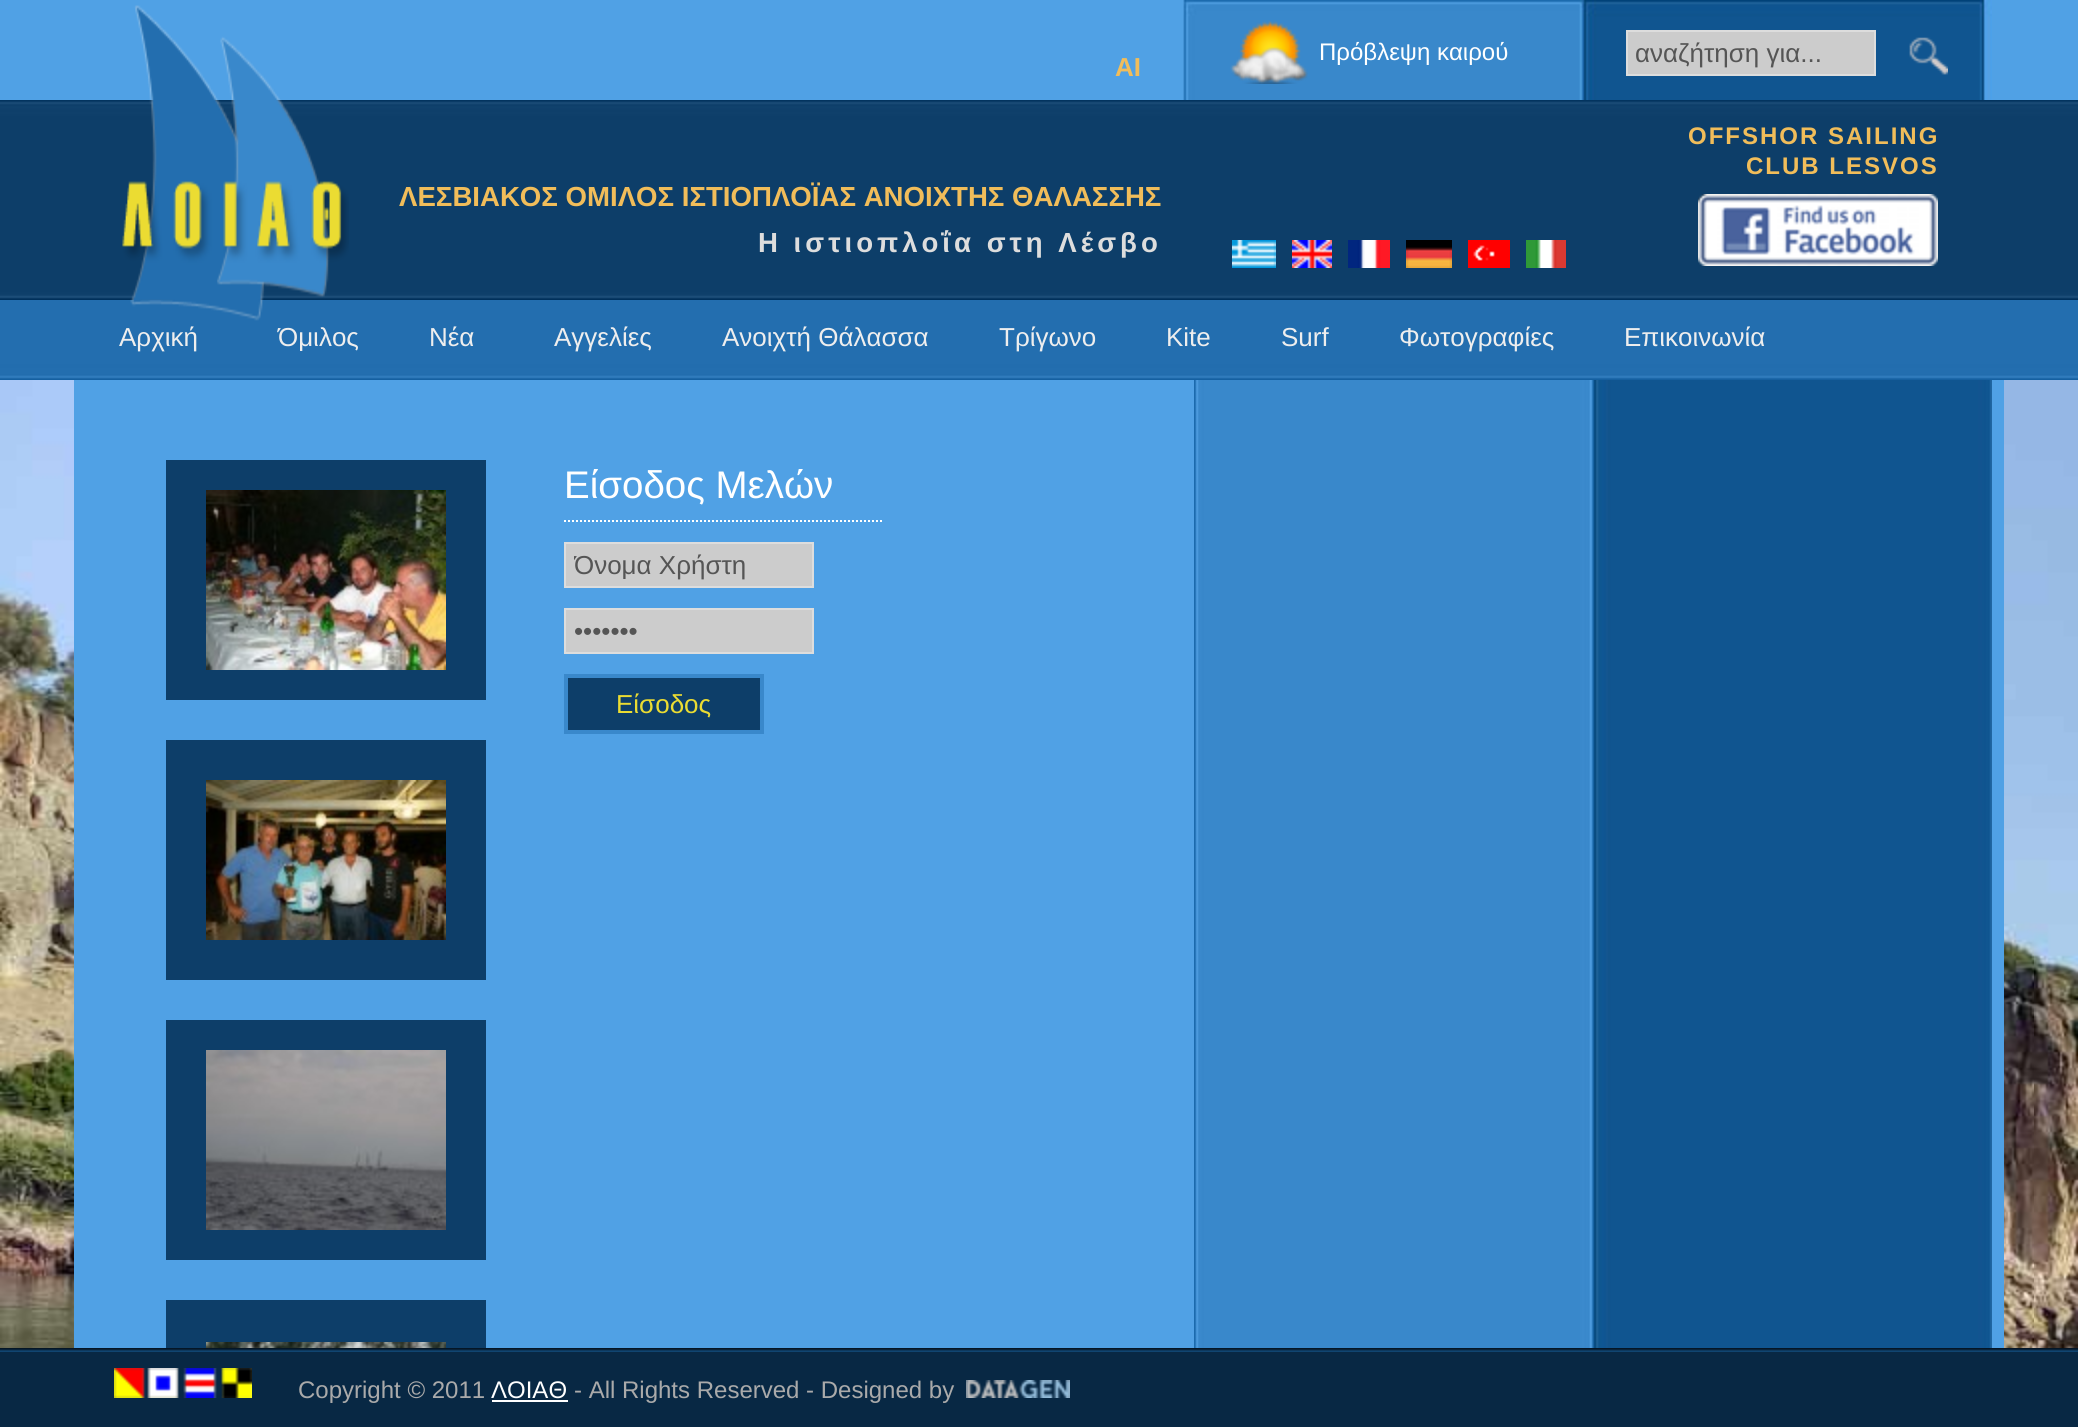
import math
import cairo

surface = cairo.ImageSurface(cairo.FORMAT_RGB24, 2078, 1427)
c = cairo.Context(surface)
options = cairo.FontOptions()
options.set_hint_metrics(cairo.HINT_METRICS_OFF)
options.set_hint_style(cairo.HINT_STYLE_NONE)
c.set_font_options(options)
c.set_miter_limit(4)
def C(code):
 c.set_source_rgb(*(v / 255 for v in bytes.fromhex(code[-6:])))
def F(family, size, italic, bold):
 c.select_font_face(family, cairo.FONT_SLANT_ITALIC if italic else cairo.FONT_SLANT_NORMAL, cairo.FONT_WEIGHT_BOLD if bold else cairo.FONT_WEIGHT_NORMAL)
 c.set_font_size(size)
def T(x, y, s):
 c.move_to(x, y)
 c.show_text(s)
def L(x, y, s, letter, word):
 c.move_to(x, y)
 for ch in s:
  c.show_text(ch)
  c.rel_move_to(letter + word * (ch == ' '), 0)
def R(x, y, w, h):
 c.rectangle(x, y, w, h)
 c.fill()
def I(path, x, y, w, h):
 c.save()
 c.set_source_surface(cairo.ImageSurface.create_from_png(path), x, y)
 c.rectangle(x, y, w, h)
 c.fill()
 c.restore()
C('50a1e5')
c.paint()
I('1.png',1183,0,809,100)
F('Liberation Sans',26,0,1)
C('f1bd5a')
T(1115,76,'ΑΙ')
I('2.png',1230,21,78,63)
F('Liberation Sans',24,0,0)
C('ffffff')
T(1319,60,'Πρόβλεψη καιρού')
C('cccccc')
c.rectangle(1627,31,248,44)
c.fill_preserve()
C('dddddd')
c.stroke()
F('Liberation Sans',26,0,0)
C('555555')
T(1635,62,'αναζήτηση για...')
I('3.png',1909,37,39,38)
I('4.png',0,100,2078,200)
I('13.png',0,300,2078,80)
I('5.png',122,5,227,316)
F('Liberation Sans',24,0,1)
C('f1bd5a')
L(1688,144,'OFFSHOR SAILING',2,0)
L(1746,174,'CLUB LESVOS',2,0)
I('6.png',1698,194,240,72)
F('Liberation Sans',27.6,0,1)
T(399,206,'ΛΕΣΒΙΑΚΟΣ ΟΜΙΛΟΣ ΙΣΤΙΟΠΛΟΪΑΣ ΑΝΟΙΧΤΗΣ ΘΑΛΑΣΣΗΣ')
C('dddddd')
L(758,252,'Η ιστιοπλοΐα στη Λέσβο',4,0)
I('7.png',1232,240,44,28)
I('8.png',1292,240,40,28)
I('9.png',1348,240,42,28)
I('10.png',1406,240,46,28)
I('11.png',1468,240,42,28)
I('12.png',1526,240,40,28)
F('Liberation Sans',26,0,0)
C('eeeeee')
T(119,346,'Αρχική')
T(278,346,'Όμιλος')
T(429,346,'Νέα')
T(554,346,'Αγγελίες')
T(722,346,'Ανοιχτή Θάλασσα')
T(999,346,'Τρίγωνο')
T(1166,346,'Kite')
T(1281,346,'Surf')
T(1399,346,'Φωτογραφίες')
T(1624,346,'Επικοινωνία')
I('14.png',0,380,2078,968)
C('50a1e5')
R(74,380,1930,968)
I('15.png',1194,380,798,968)
C('0d3e69')
R(166,460,320,240)
I('16.png',206,490,240,180)
R(166,740,320,240)
I('17.png',206,780,240,160)
R(166,1020,320,240)
I('18.png',206,1050,240,180)
R(166,1300,320,48)
I('19.png',206,1342,240,6)
c.new_path()
c.move_to(564,521)
c.line_to(882,521)
C('ffffff')
c.set_dash([2,2])
c.stroke()
F('Liberation Sans',38.5,0,0)
T(564,498,'Είσοδος Μελών')
C('cccccc')
c.rectangle(565,543,248,44)
c.fill_preserve()
C('dddddd')
c.set_dash([])
c.stroke()
c.save()
c.rectangle(574,550,230,30)
c.clip()
F('Liberation Sans',26,0,0)
C('555555')
T(574,574,'Όνομα Χρήστη')
c.restore()
C('cccccc')
c.rectangle(565,609,248,44)
c.fill_preserve()
C('dddddd')
c.stroke()
F('Liberation Sans',26,0,0)
C('555555')
T(574,640,'•••••••')
C('0d3e69')
c.rectangle(566,676,196,56)
c.fill_preserve()
C('3988cb')
c.set_line_width(4)
c.stroke()
C('ebdc32')
T(616,713,'Είσοδος')
C('082844')
R(0,1352,2078,75)
I('20.png',0,1348,2078,4)
I('21.png',114,1368,138,30)
F('Liberation Sans',24,0,0)
C('aaaaaa')
T(298,1398,'Copyright © 2011')
C('ffffff')
T(491,1398,'ΛΟΙΑΘ')
R(492,1400,76,2)
C('aaaaaa')
T(574,1398,'- All Rights Reserved - Designed by')
I('22.png',966,1380,104,18)
surface.write_to_png('o.png')
